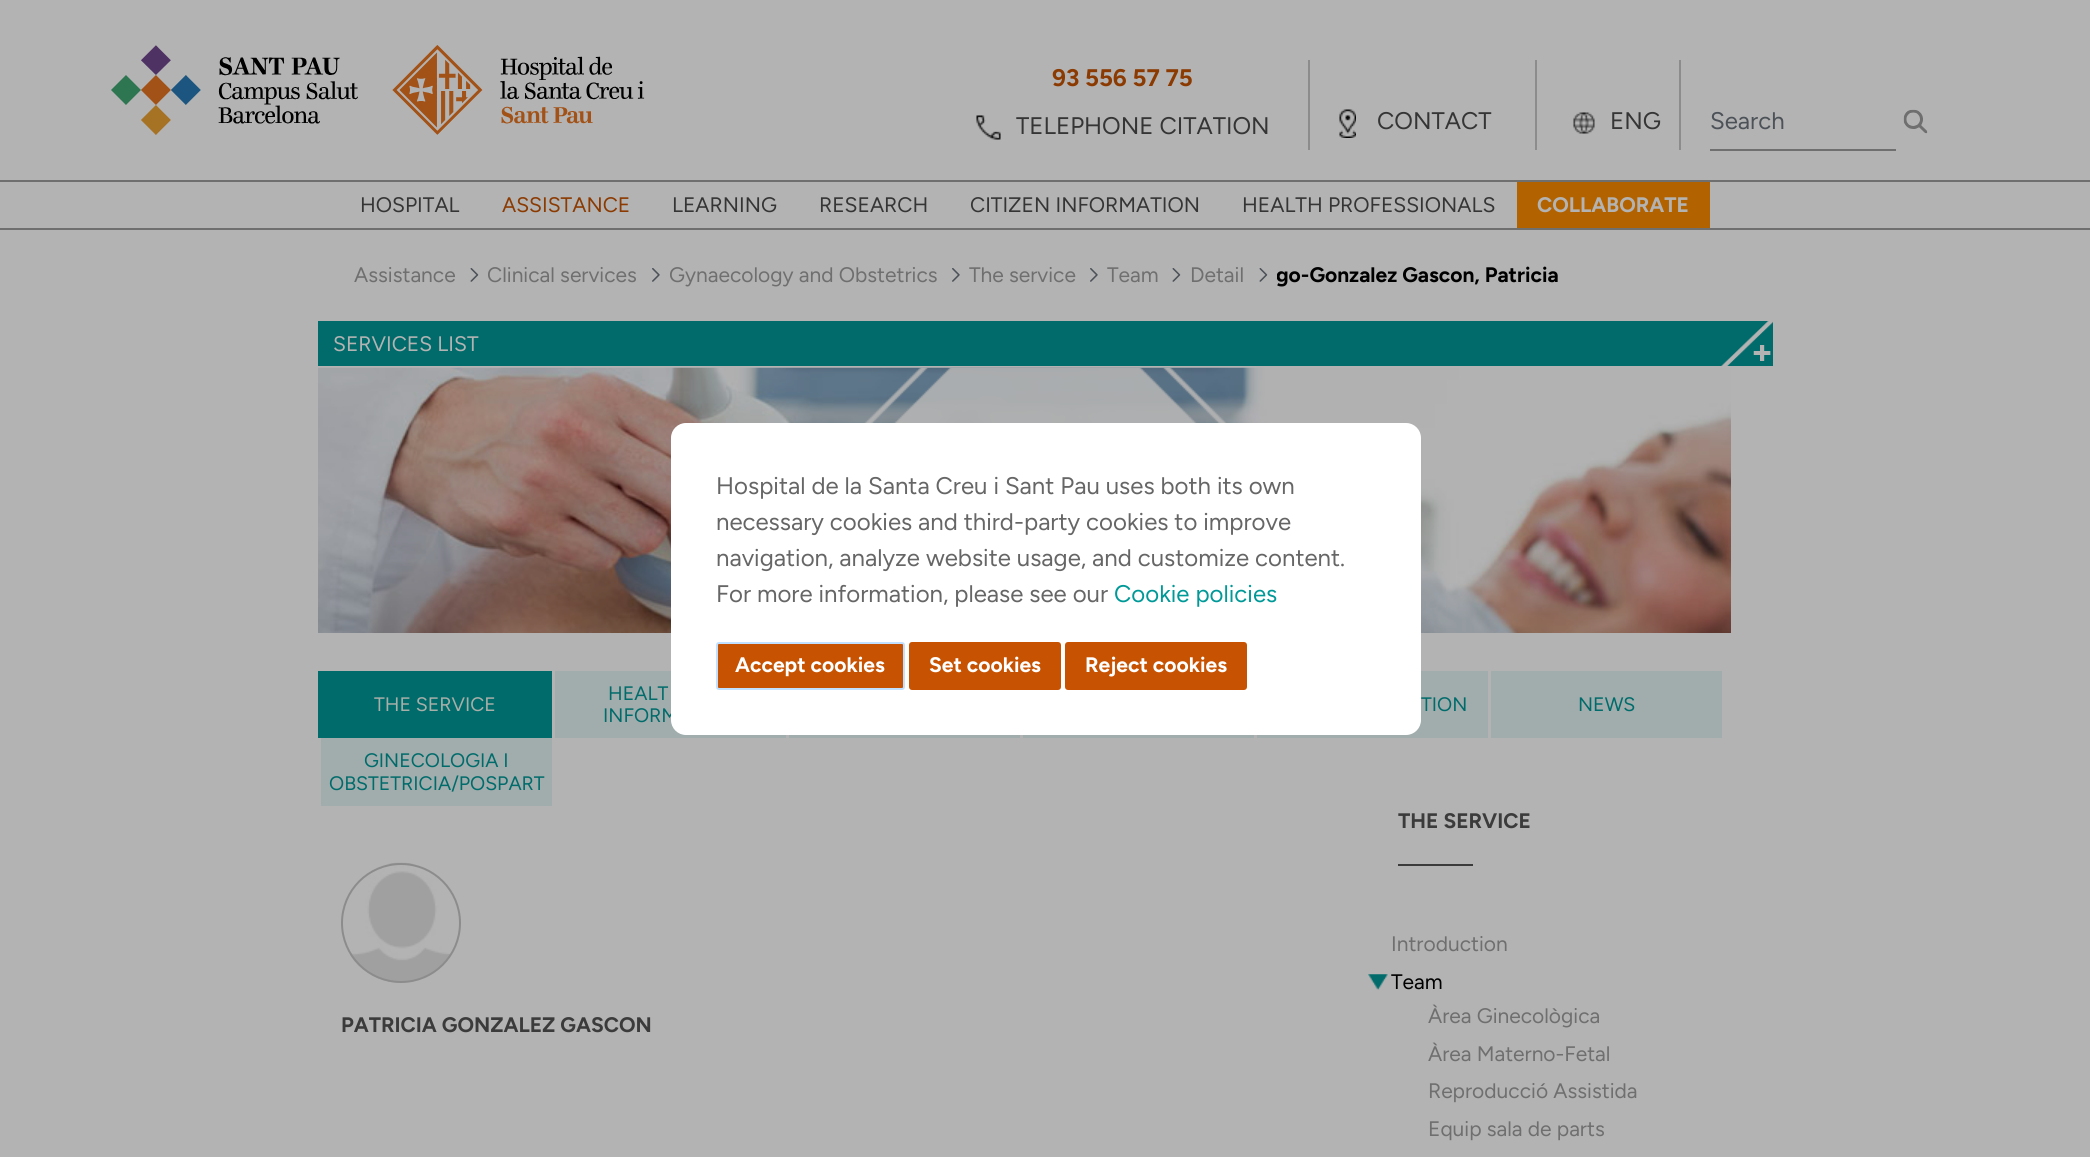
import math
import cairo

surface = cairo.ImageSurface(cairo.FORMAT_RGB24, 2090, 1157)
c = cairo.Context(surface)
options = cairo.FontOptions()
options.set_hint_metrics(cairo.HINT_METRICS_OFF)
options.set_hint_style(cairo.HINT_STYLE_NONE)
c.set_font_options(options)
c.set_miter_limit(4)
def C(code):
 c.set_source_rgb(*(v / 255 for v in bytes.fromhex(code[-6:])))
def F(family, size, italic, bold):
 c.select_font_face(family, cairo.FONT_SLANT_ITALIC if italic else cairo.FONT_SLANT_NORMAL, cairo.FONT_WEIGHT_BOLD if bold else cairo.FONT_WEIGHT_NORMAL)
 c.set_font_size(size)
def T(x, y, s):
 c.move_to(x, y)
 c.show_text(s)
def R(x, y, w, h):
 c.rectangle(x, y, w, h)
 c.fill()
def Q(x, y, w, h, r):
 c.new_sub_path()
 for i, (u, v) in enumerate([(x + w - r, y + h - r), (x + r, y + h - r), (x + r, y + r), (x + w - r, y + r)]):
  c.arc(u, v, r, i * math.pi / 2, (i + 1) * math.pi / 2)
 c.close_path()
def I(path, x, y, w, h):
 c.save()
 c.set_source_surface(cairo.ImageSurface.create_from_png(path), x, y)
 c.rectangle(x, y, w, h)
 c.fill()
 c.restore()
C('b3b3b3')
c.paint()
I('1.png',111,45,534,90)
C('8c8c8c')
R(1308,60,2,90)
F('Figtree',24,0,1)
C('8b3a01')
T(1052,86,'93 556 57 75')
I('2.png',976,115,25,25)
F('Figtree',24,0,0)
C('353535')
T(1016,134,'TELEPHONE CITATION')
C('8c8c8c')
R(1535,60,2,90)
I('3.png',1339,109,17,29)
C('353535')
T(1377,129,'CONTACT')
C('8c8c8c')
R(1679,60,2,90)
I('4.png',1573,112,22,22)
C('353535')
T(1610,129,'ENG')
C('6f6f6f')
R(1710,149,186,2)
C('4c5258')
T(1710,129,'Search')
I('5.png',1903,109,25,25)
C('6f6f6f')
R(0,180,2090,2)
R(0,228,2090,2)
F('Figtree',21,0,0)
C('353535')
T(360,212,'HOSPITAL')
C('8b3a01')
T(502,212,'ASSISTANCE')
C('353535')
T(672,212,'LEARNING')
T(819,212,'RESEARCH')
T(970,212,'CITIZEN INFORMATION')
T(1242,212,'HEALTH PROFESSIONALS')
C('b36200')
R(1517,182,193,46)
F('Figtree',21,0,1)
C('b3b3b3')
T(1537,212,'COLLABORATE')
F('Figtree',21,0,0)
C('6f6f6f')
T(354,282,'Assistance')
I('6.png',470,268,9,14)
T(487,282,'Clinical services')
I('7.png',652,268,8,14)
T(669,282,'Gynaecology and Obstetrics')
I('7.png',952,268,8,14)
T(969,282,'The service')
I('7.png',1090,268,8,14)
T(1107,282,'Team')
I('6.png',1172,268,9,14)
T(1190,282,'Detail')
I('6.png',1259,268,9,14)
c.save()
c.rectangle(1277,260,282,31)
c.clip()
F('Figtree',21,0,1)
C('000000')
T(1276,282,'go-Gonzalez Gascon, Patricia')
c.restore()
C('006b6a')
R(318,321,1403,45)
C('b3b3b3')
T(333,351,'SERVICES LIST')
I('8.png',1721,321,52,45)
I('9.png',318,367,1413,266)
I('10.png',864,367,363,56)
C('006b6b')
R(318,671,234,67)
F('Figtree',19.5,0,0)
C('a8aea8')
T(374,711,'THE SERVICE')
C('a1acac')
R(555,671,231,67)
C('006b6b')
T(608,700,'HEALT')
T(603,722,'INFORM')
C('a1acac')
R(1257,671,231,67)
C('006b6b')
T(1421,711,'TION')
C('a1acac')
R(1491,671,231,67)
C('006b6b')
T(1578,711,'NEWS')
C('a1acac')
R(789,735,231,3)
R(1023,735,231,3)
R(321,738,231,68)
C('006b6b')
T(364,767,'GINECOLOGIA I')
T(329,790,'OBSTETRICIA/POSPART')
I('11.png',350,862,102,121)
c.arc(401,923,59,0,2 * math.pi)
C('8c8c8c')
c.stroke()
F('Figtree',21,0,1)
C('3b3b3b')
T(341,1032,'PATRICIA GONZALEZ GASCON')
T(1398,828,'THE SERVICE')
R(1398,864,75,2)
F('Figtree',21,0,0)
C('6f6f6f')
T(1391,951,'Introduction')
I('12.png',1368,974,20,16)
C('000000')
T(1391,989,'Team')
C('6f6f6f')
T(1428,1023,'Àrea Ginecològica')
T(1428,1061,'Àrea Materno-Fetal')
T(1428,1098,'Reproducció Assistida')
T(1428,1136,'Equip sala de parts')
C('ffffff')
Q(671,423,750,312,15)
c.fill()
F('Figtree',24,0,0)
C('666666')
T(716,494,'Hospital de la Santa Creu i Sant Pau uses both its own')
T(716,530,'necessary cookies and third-party cookies to improve')
T(716,566,'navigation, analyze website usage, and customize content.')
T(716,602,'For more information, please see our')
C('009998')
T(1114,602,'Cookie policies')
C('c75302')
Q(717,643,187,46,2)
c.fill_preserve()
C('c1e0ff')
c.stroke()
F('Figtree',21,0,1)
C('ffffff')
T(735,672,'Accept cookies')
C('c75302')
Q(910,643,150,46,2)
c.fill_preserve()
c.stroke()
C('ffffff')
T(929,672,'Set cookies')
C('c75302')
Q(1066,643,180,46,2)
c.fill_preserve()
c.stroke()
C('ffffff')
T(1085,672,'Reject cookies')
surface.write_to_png('o.png')
